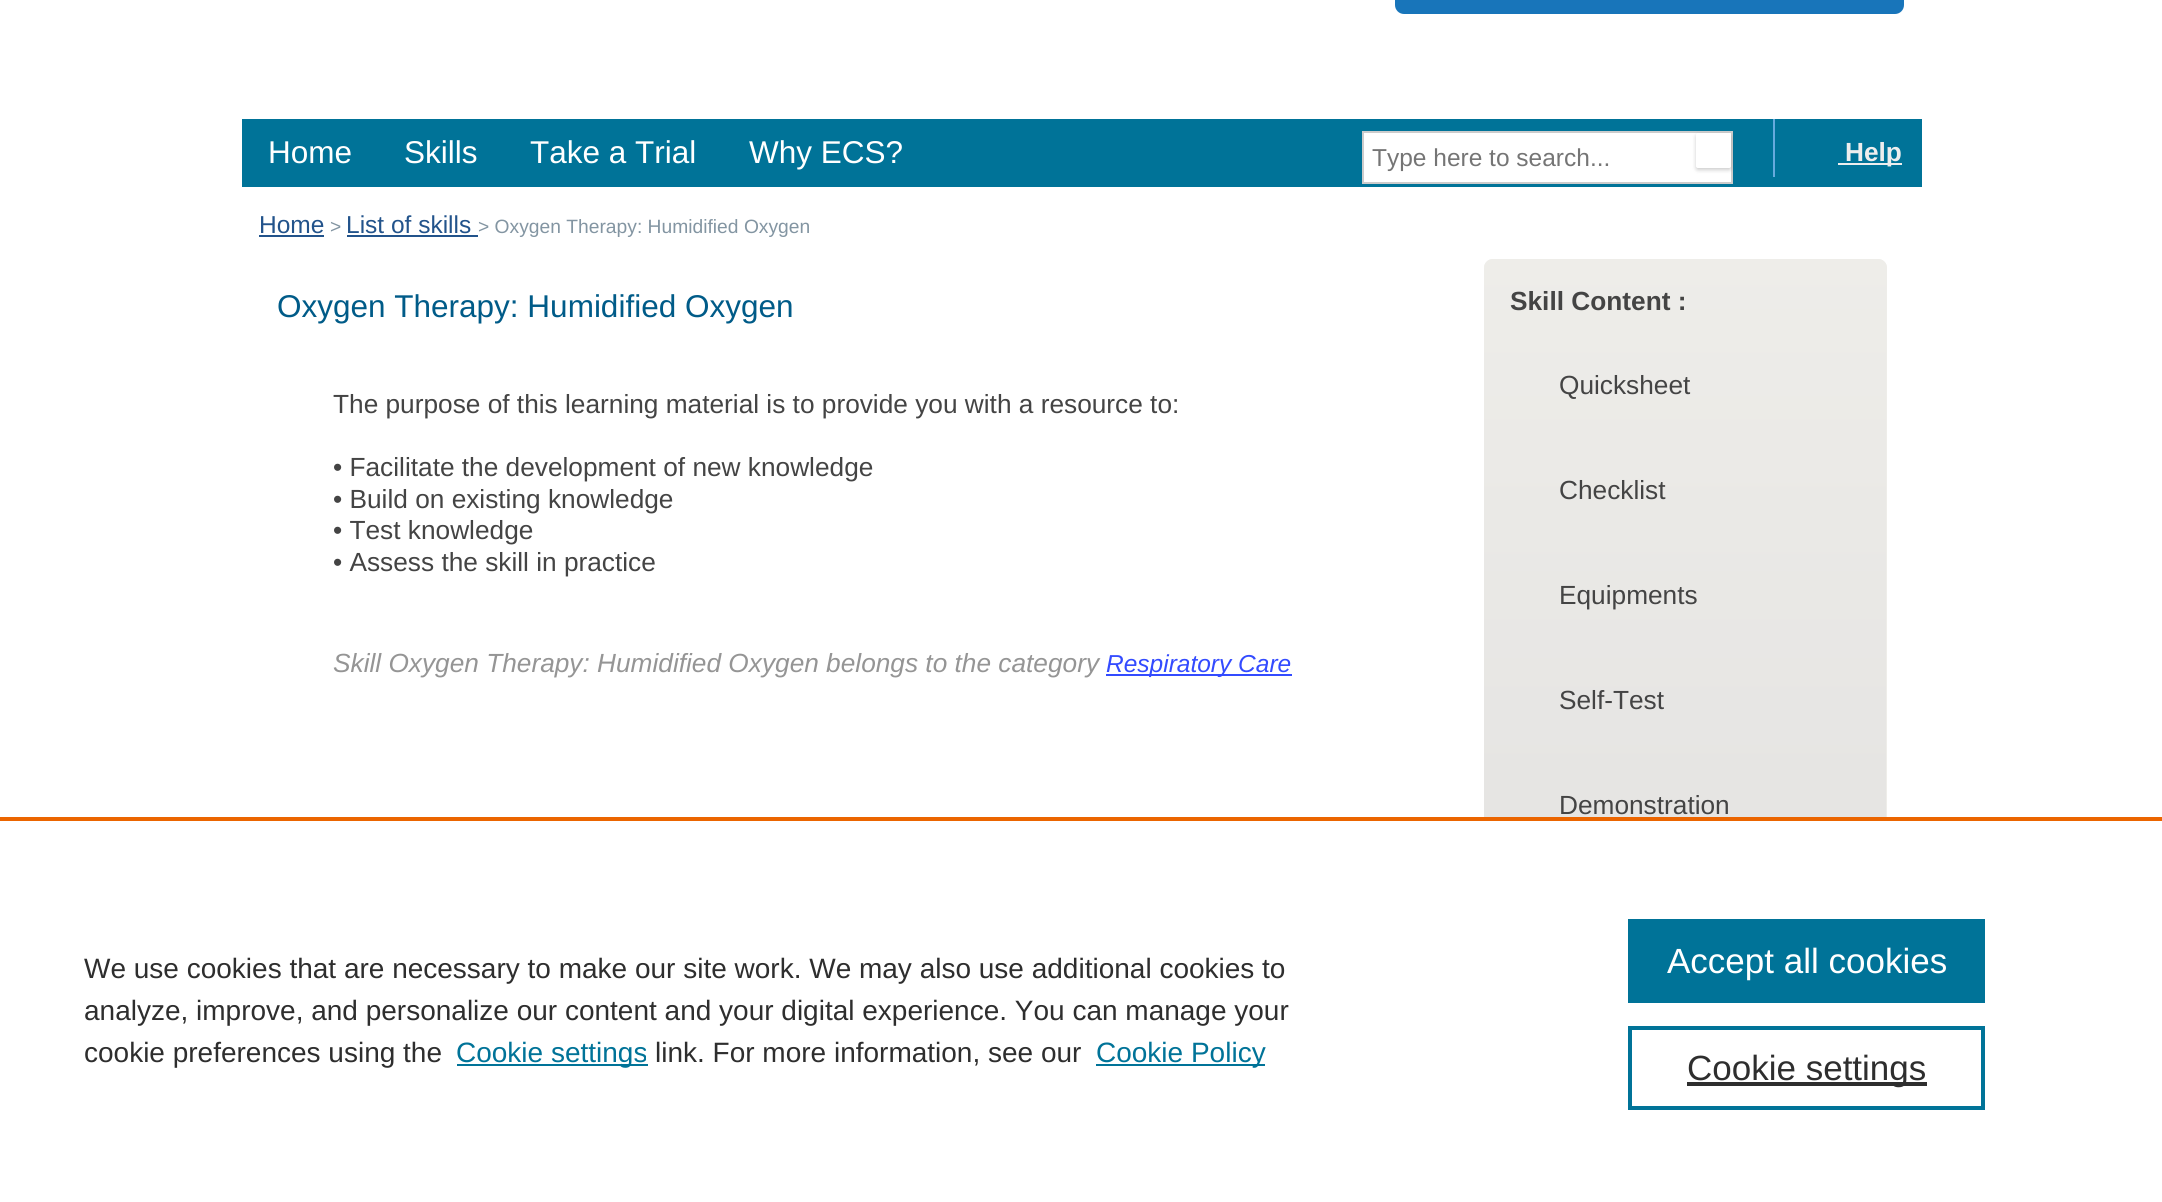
import math
import cairo

surface = cairo.ImageSurface(cairo.FORMAT_RGB24, 2162, 1202)
c = cairo.Context(surface)
options = cairo.FontOptions()
options.set_hint_metrics(cairo.HINT_METRICS_OFF)
options.set_hint_style(cairo.HINT_STYLE_NONE)
c.set_font_options(options)
c.set_miter_limit(4)
def C(code):
 c.set_source_rgb(*(v / 255 for v in bytes.fromhex(code[-6:])))
def F(family, size, italic, bold):
 c.select_font_face(family, cairo.FONT_SLANT_ITALIC if italic else cairo.FONT_SLANT_NORMAL, cairo.FONT_WEIGHT_BOLD if bold else cairo.FONT_WEIGHT_NORMAL)
 c.set_font_size(size)
def T(x, y, s):
 c.move_to(x, y)
 c.show_text(s)
def R(x, y, w, h):
 c.rectangle(x, y, w, h)
 c.fill()
def Q(x, y, w, h, r):
 c.new_sub_path()
 for i, (u, v) in enumerate([(x + w - r, y + h - r), (x + r, y + h - r), (x + r, y + r), (x + w - r, y + r)]):
  c.arc(u, v, r, i * math.pi / 2, (i + 1) * math.pi / 2)
 c.close_path()
def S(x, y, w, h, r, blur, alpha):
 c.push_group_with_content(cairo.CONTENT_ALPHA)
 c.set_operator(cairo.OPERATOR_SOURCE)
 for i in range(15, -16, -2):
  e = blur * i / 6
  if min(w, h) + 2 * e > 0:
   c.set_source_rgba(0, 0, 0, alpha * math.erfc((i - 1) / 8.5) / 2)
   Q(x - e, y - e, w + 2 * e, h + 2 * e, max(0, min(r + e + blur * .6, min(w, h) / 2 + e)))
   c.fill()
 c.mask(c.pop_group())
C('ffffff')
c.paint()
C('1875ba')
Q(1395,-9,509,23,9)
c.fill()
C('007398')
R(242,119,1680,68)
F('Liberation Sans',31.5,0,0)
C('ffffff')
T(268,163,'Home')
T(404,163,'Skills')
T(530,163,'Take a Trial')
T(749,163,'Why ECS?')
c.rectangle(1363,132,369,51)
c.fill_preserve()
C('cccccc')
c.stroke()
F('Liberation Sans',24.5,0,0)
C('757575')
T(1372,166,'Type here to search...')
c.save()
c.set_fill_rule(cairo.FILL_RULE_EVEN_ODD)
c.new_path()
c.move_to(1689,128)
c.line_to(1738,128)
c.line_to(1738,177)
c.line_to(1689,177)
c.close_path()
c.move_to(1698,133)
c.line_to(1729,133)
c.curve_to(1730,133,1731,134,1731,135)
c.line_to(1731,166)
c.curve_to(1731,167,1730,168,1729,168)
c.line_to(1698,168)
c.curve_to(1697,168,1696,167,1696,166)
c.line_to(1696,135)
c.curve_to(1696,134,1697,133,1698,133)
c.close_path()
c.clip()
C('000000')
S(1696,135,35,35,2,2,.2)
c.restore()
C('66aadd')
R(1773,119,2,58)
C('eeeeee')
R(1838,163,64,2)
F('Liberation Sans',26.25,0,1)
T(1845,161,'Help')
F('Liberation Sans',24.5,0,0)
C('22538b')
T(259,233,'Home')
R(259,235,65,2)
F('Liberation Sans',19.25,0,0)
C('8395a2')
T(330,233,'>')
F('Liberation Sans',24.5,0,0)
C('22538b')
T(346,233,'List of skills')
R(347,235,131,2)
F('Liberation Sans',19.25,0,0)
C('8395a2')
T(478,233,'> Oxygen Therapy: Humidified Oxygen')
F('Liberation Sans',31.5,0,0)
C('005b88')
T(277,317,'Oxygen Therapy: Humidified Oxygen')
F('Liberation Sans',26.25,0,0)
C('444444')
T(333,413,'The purpose of this learning material is to provide you with a resource to:')
T(333,476,'• Facilitate the development of new knowledge')
T(333,508,'• Build on existing knowledge')
T(333,539,'• Test knowledge')
T(333,571,'• Assess the skill in practice')
F('Liberation Sans',26.25,1,0)
C('959595')
T(333,672,'Skill Oxygen Therapy: Humidified Oxygen belongs to the category')
C('334bff')
R(1106,674,186,2)
F('Liberation Sans',24.5,1,0)
T(1106,672,'Respiratory Care')
gradient = cairo.LinearGradient(1685,259,1685,1127)
gradient.add_color_stop_rgba(0,0.933,0.929,0.914,1)
gradient.add_color_stop_rgba(1,0.882,0.878,0.875,1)
c.set_source(gradient)
Q(1484,259,403,868,9)
c.fill()
C('eeede9')
c.new_path()
c.move_to(1493,261)
c.line_to(1878,261)
c.curve_to(1883,261,1886,265,1886,270)
c.line_to(1886,1123)
c.curve_to(1887,1121,1887,1120,1887,1118)
c.line_to(1887,268)
c.curve_to(1887,263,1883,259,1878,259)
c.line_to(1493,259)
c.curve_to(1488,259,1484,263,1484,268)
c.line_to(1484,270)
c.curve_to(1484,265,1488,261,1493,261)
c.close_path()
c.fill()
F('Liberation Sans',26.25,0,1)
C('444444')
T(1510,310,'Skill Content :')
F('Liberation Sans',26.25,0,0)
T(1559,394,'Quicksheet')
T(1559,499,'Checklist')
T(1559,604,'Equipments')
T(1559,709,'Self-Test')
T(1559,814,'Demonstration')
C('ffffff')
R(1484,821,403,306)
C('eb6500')
R(0,817,2162,4)
F('Liberation Sans',28,0,0)
C('2e2e2e')
T(84,978,'We use cookies that are necessary to make our site work. We may also use additional cookies to')
T(84,1020,'analyze, improve, and personalize our content and your digital experience. You can manage your')
T(84,1062,'cookie preferences using the')
C('007398')
R(457,1064,191,2)
T(456,1062,'Cookie settings')
C('2e2e2e')
T(655,1062,'link. For more information, see our')
C('007398')
R(1096,1064,169,2)
T(1096,1062,'Cookie Policy')
R(1628,919,357,84)
F('Liberation Sans',35,0,0)
C('ffffff')
T(1667,973,'Accept all cookies')
c.rectangle(1630,1028,353,80)
C('007398')
c.set_line_width(4)
c.stroke()
C('2e2e2e')
R(1687,1082,240,4)
T(1687,1080,'Cookie settings')
surface.write_to_png('o.png')
